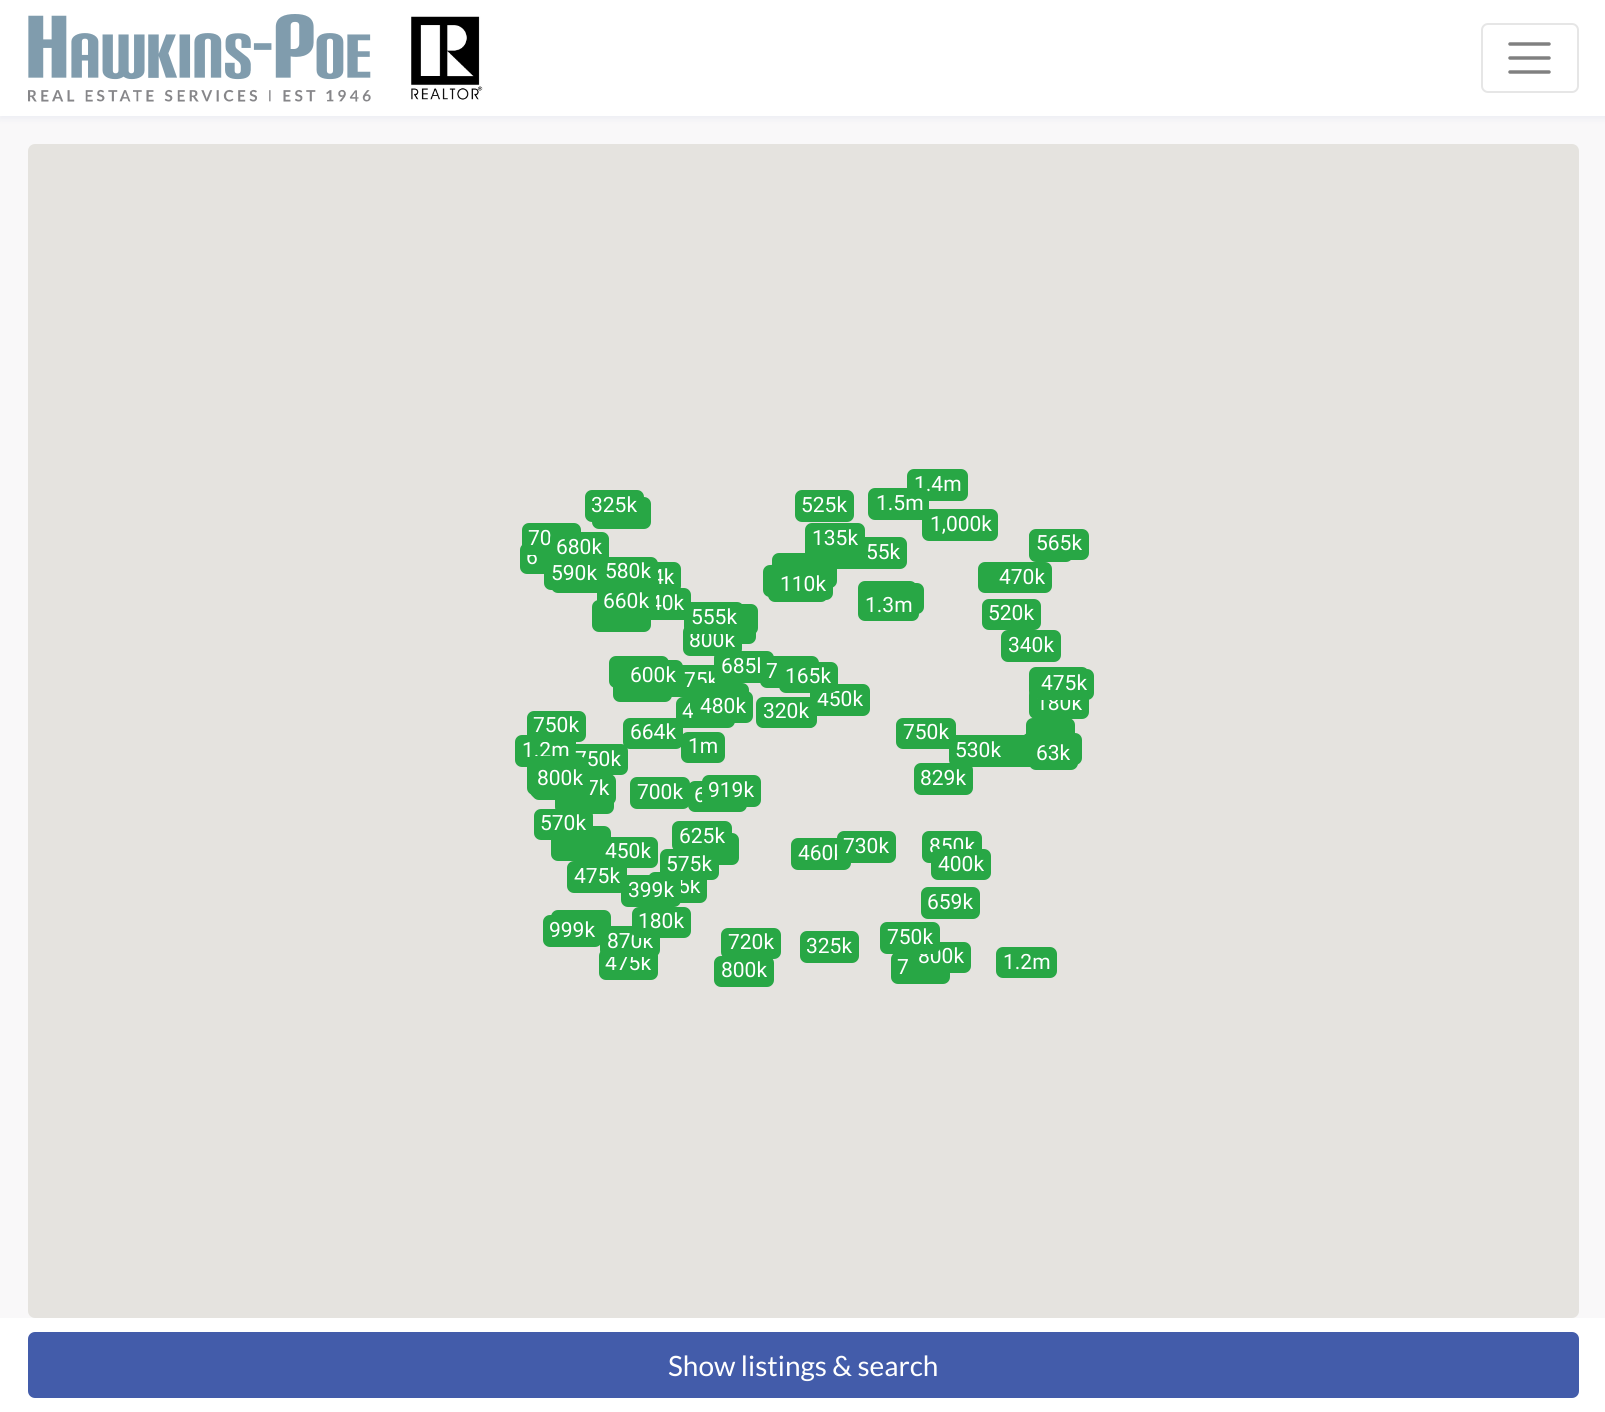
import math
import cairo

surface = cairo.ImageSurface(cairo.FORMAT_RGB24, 1605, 1412)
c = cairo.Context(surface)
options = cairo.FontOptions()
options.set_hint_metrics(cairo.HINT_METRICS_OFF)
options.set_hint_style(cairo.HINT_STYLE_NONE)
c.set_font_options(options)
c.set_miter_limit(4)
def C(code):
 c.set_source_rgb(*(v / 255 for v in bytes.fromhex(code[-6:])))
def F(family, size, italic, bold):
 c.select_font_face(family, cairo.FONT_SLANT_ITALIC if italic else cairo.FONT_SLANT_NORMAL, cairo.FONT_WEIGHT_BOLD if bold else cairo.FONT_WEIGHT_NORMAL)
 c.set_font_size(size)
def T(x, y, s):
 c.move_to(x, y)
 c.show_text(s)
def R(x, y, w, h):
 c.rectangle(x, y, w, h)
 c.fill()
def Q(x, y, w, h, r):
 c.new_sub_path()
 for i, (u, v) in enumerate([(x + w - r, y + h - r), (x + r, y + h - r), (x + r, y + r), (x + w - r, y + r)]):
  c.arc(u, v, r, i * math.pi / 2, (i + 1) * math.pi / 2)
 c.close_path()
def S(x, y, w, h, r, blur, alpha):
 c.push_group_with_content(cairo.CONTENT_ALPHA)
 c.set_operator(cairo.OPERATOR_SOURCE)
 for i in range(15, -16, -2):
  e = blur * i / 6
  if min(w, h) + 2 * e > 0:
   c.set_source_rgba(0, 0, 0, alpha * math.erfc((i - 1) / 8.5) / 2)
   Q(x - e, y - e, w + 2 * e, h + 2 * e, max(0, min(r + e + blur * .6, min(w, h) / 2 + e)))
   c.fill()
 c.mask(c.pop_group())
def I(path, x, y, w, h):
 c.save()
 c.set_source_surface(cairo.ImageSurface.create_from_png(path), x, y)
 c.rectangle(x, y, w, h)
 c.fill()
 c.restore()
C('f9f8f9')
c.paint()
C('435caa')
S(0,4,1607,115,0,3.5,.07)
C('ffffff')
R(0,0,1605,116)
I('1.png',28,14,343,88)
I('2.png',411,16,72,84)
Q(1482,24,96,68,6)
C('e6e6e6')
c.stroke()
c.new_path()
c.move_to(1510,44)
c.line_to(1549,44)
c.move_to(1510,58)
c.line_to(1549,58)
c.move_to(1510,72)
c.line_to(1549,72)
C('808080')
c.set_line_width(3.5)
c.set_line_cap(cairo.LINE_CAP_ROUND)
c.stroke()
C('e5e3df')
Q(28,144,1551,1174,7)
c.fill()
C('28a745')
Q(907,469,61,32,7)
c.fill()
F('Roboto',21,0,0)
C('ffffff')
T(914,491,'1.4m')
C('28a745')
Q(592,497,59,32,7)
c.fill()
Q(585,490,59,32,7)
c.fill()
C('ffffff')
T(591,512,'325k')
C('28a745')
Q(795,490,59,32,7)
c.fill()
C('ffffff')
T(801,512,'525k')
C('28a745')
Q(922,509,76,32,7)
c.fill()
Q(868,488,61,32,7)
c.fill()
C('ffffff')
T(876,510,'1.5m')
T(930,531,'1,000k')
C('28a745')
Q(551,562,60,31,7)
c.fill()
Q(520,543,59,31,7)
c.fill()
Q(544,558,60,32,7)
c.fill()
C('ffffff')
T(551,580,'590k')
C('28a745')
Q(550,534,59,31,7)
c.fill()
C('ffffff')
T(526,564,'6')
C('28a745')
Q(522,523,59,32,7)
c.fill()
C('ffffff')
T(528,545,'70')
C('28a745')
Q(772,557,65,31,7)
c.fill()
Q(772,553,49,32,7)
c.fill()
Q(847,537,60,32,7)
c.fill()
C('ffffff')
T(866,559,'55k')
C('28a745')
Q(772,567,59,32,7)
c.fill()
Q(763,565,60,32,7)
c.fill()
Q(809,537,59,32,7)
c.fill()
Q(768,571,60,31,7)
c.fill()
Q(768,564,60,31,7)
c.fill()
Q(807,536,59,31,7)
c.fill()
Q(805,537,60,32,7)
c.fill()
Q(805,523,60,32,7)
c.fill()
C('ffffff')
T(812,545,'135k')
C('28a745')
Q(1029,530,44,32,7)
c.fill()
Q(1029,529,60,31,7)
c.fill()
C('ffffff')
T(1036,550,'565k')
C('28a745')
Q(632,588,59,32,7)
c.fill()
Q(621,562,60,31,7)
c.fill()
C('ffffff')
T(652,584,'4k')
T(650,610,'40k')
C('28a745')
Q(592,600,59,32,7)
c.fill()
Q(597,586,59,32,7)
c.fill()
Q(599,557,59,31,7)
c.fill()
C('ffffff')
T(605,578,'580k')
C('28a745')
Q(550,532,59,32,7)
c.fill()
C('ffffff')
T(556,554,'680k')
C('28a745')
Q(978,562,60,31,7)
c.fill()
Q(992,562,60,31,7)
c.fill()
C('ffffff')
T(999,584,'470k')
C('28a745')
Q(774,569,59,31,7)
c.fill()
C('ffffff')
T(780,591,'110k')
C('28a745')
Q(858,581,59,32,7)
c.fill()
C('ffffff')
T(603,608,'660k')
C('28a745')
Q(865,583,59,31,7)
c.fill()
Q(698,604,60,31,7)
c.fill()
Q(858,590,61,31,7)
c.fill()
C('ffffff')
T(865,612,'1.3m')
C('28a745')
Q(982,599,59,31,7)
c.fill()
C('ffffff')
T(988,620,'520k')
C('28a745')
Q(697,613,59,31,7)
c.fill()
Q(683,625,59,31,7)
c.fill()
C('ffffff')
T(689,647,'800k')
C('28a745')
Q(684,602,60,32,7)
c.fill()
C('ffffff')
T(691,624,'555k')
C('28a745')
Q(1001,630,60,32,7)
c.fill()
C('ffffff')
T(1008,652,'340k')
C('28a745')
R(671,665,50,32)
Q(613,670,59,32,7)
c.fill()
Q(609,656,60,32,7)
c.fill()
C('ffffff')
T(684,687,'75k')
C('28a745')
Q(714,651,60,32,7)
c.fill()
C('ffffff')
T(721,673,'685k')
C('28a745')
Q(810,684,60,32,7)
c.fill()
Q(760,656,59,32,7)
c.fill()
C('ffffff')
T(766,678,'7')
C('28a745')
Q(623,660,60,31,7)
c.fill()
C('ffffff')
T(630,682,'600k')
T(817,706,'450k')
C('28a745')
Q(779,662,59,31,7)
c.fill()
C('ffffff')
T(785,683,'165k')
C('28a745')
Q(1029,688,60,31,7)
c.fill()
C('ffffff')
T(1036,710,'180k')
C('28a745')
Q(1029,667,60,31,7)
c.fill()
Q(1034,669,60,31,7)
c.fill()
C('ffffff')
T(1041,690,'475k')
C('28a745')
Q(676,697,59,31,7)
c.fill()
C('ffffff')
T(682,718,'4')
C('28a745')
Q(690,683,59,31,7)
c.fill()
Q(693,691,60,32,7)
c.fill()
C('ffffff')
T(700,713,'480k')
C('28a745')
Q(758,697,59,31,7)
c.fill()
Q(756,697,60,31,7)
c.fill()
C('ffffff')
T(763,718,'320k')
C('28a745')
Q(623,718,60,31,7)
c.fill()
Q(569,744,59,31,7)
c.fill()
Q(515,735,61,32,7)
c.fill()
C('ffffff')
T(522,757,'1.2m')
C('28a745')
Q(527,711,59,31,7)
c.fill()
C('ffffff')
T(533,732,'750k')
T(630,739,'664k')
C('28a745')
Q(896,718,60,31,7)
c.fill()
C('ffffff')
T(903,739,'750k')
C('28a745')
R(1001,735,30,32)
Q(1026,718,49,31,7)
c.fill()
Q(681,732,44,31,7)
c.fill()
C('ffffff')
T(688,753,'1m')
C('28a745')
Q(914,763,59,32,7)
c.fill()
Q(949,735,59,32,7)
c.fill()
C('ffffff')
T(955,757,'530k')
C('28a745')
Q(1022,733,60,32,7)
c.fill()
C('ffffff')
T(575,766,'750k')
C('28a745')
Q(555,782,59,32,7)
c.fill()
Q(532,768,60,32,7)
c.fill()
Q(557,774,59,31,7)
c.fill()
Q(527,763,59,32,7)
c.fill()
C('ffffff')
T(587,795,'7k')
C('28a745')
Q(530,767,60,31,7)
c.fill()
Q(527,756,59,32,7)
c.fill()
Q(1029,739,49,31,7)
c.fill()
C('ffffff')
T(1036,760,'63k')
T(537,785,'800k')
C('28a745')
Q(688,781,59,31,7)
c.fill()
C('ffffff')
T(694,802,'6')
C('28a745')
Q(702,775,59,32,7)
c.fill()
C('ffffff')
T(708,797,'919k')
T(920,785,'829k')
C('28a745')
Q(630,777,60,32,7)
c.fill()
C('ffffff')
T(637,799,'700k')
C('28a745')
Q(551,830,60,31,7)
c.fill()
Q(551,826,60,32,7)
c.fill()
Q(534,809,59,31,7)
c.fill()
C('ffffff')
T(540,830,'570k')
C('28a745')
Q(677,833,62,32,7)
c.fill()
Q(648,872,59,31,7)
c.fill()
C('ffffff')
T(678,893,'5k')
C('28a745')
Q(621,875,60,32,7)
c.fill()
Q(660,849,59,31,7)
c.fill()
Q(672,821,60,31,7)
c.fill()
C('ffffff')
T(679,843,'625k')
C('28a745')
Q(599,837,59,31,7)
c.fill()
C('ffffff')
T(605,858,'450k')
C('28a745')
Q(791,838,60,32,7)
c.fill()
C('ffffff')
T(798,860,'460k')
C('28a745')
Q(837,831,59,32,7)
c.fill()
C('ffffff')
T(843,853,'730k')
C('28a745')
Q(922,831,60,32,7)
c.fill()
C('ffffff')
T(929,853,'850k')
T(666,871,'575k')
C('28a745')
Q(931,849,60,31,7)
c.fill()
C('ffffff')
T(938,871,'400k')
C('28a745')
Q(567,861,60,32,7)
c.fill()
C('ffffff')
T(574,883,'475k')
T(628,897,'399k')
C('28a745')
Q(921,887,59,32,7)
c.fill()
C('ffffff')
T(927,909,'659k')
C('28a745')
Q(551,910,60,32,7)
c.fill()
Q(599,949,59,31,7)
c.fill()
C('ffffff')
T(605,970,'475k')
C('28a745')
Q(600,926,60,31,7)
c.fill()
C('ffffff')
T(607,948,'870k')
C('28a745')
Q(632,907,59,31,7)
c.fill()
C('ffffff')
T(638,928,'180k')
C('28a745')
Q(543,915,59,32,7)
c.fill()
C('ffffff')
T(549,937,'999k')
C('28a745')
Q(721,928,60,31,7)
c.fill()
C('ffffff')
T(728,949,'720k')
C('28a745')
Q(800,931,59,32,7)
c.fill()
C('ffffff')
T(806,953,'325k')
C('28a745')
Q(891,952,59,32,7)
c.fill()
Q(912,942,59,31,7)
c.fill()
C('ffffff')
T(918,963,'800k')
C('28a745')
Q(880,922,60,32,7)
c.fill()
C('ffffff')
T(887,944,'750k')
C('28a745')
Q(996,947,61,31,7)
c.fill()
C('ffffff')
T(1003,969,'1.2m')
C('28a745')
Q(714,956,60,31,7)
c.fill()
C('ffffff')
T(721,977,'800k')
T(897,974,'7')
R(0,1318,1605,94)
C('435caa')
Q(29,1333,1549,64,6)
c.fill_preserve()
c.set_line_width(2)
c.set_line_cap(cairo.LINE_CAP_BUTT)
c.stroke()
F('Lato',28,0,0)
C('ffffff')
T(668,1376,'Show listings & search')
surface.write_to_png('o.png')
